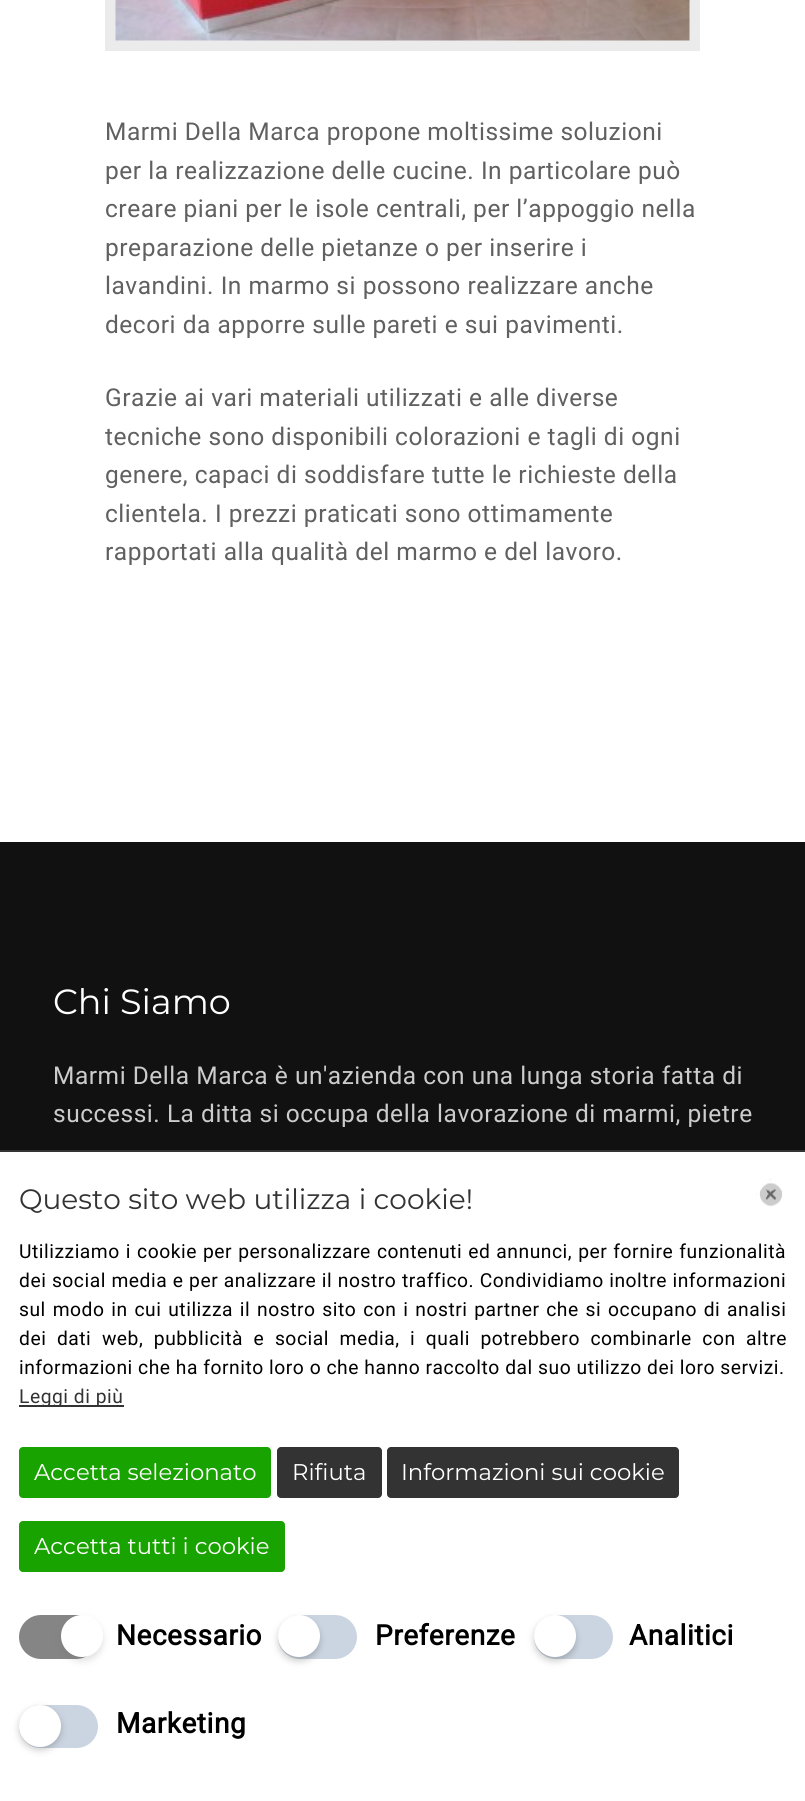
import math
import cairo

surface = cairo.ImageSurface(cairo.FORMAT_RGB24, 805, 1801)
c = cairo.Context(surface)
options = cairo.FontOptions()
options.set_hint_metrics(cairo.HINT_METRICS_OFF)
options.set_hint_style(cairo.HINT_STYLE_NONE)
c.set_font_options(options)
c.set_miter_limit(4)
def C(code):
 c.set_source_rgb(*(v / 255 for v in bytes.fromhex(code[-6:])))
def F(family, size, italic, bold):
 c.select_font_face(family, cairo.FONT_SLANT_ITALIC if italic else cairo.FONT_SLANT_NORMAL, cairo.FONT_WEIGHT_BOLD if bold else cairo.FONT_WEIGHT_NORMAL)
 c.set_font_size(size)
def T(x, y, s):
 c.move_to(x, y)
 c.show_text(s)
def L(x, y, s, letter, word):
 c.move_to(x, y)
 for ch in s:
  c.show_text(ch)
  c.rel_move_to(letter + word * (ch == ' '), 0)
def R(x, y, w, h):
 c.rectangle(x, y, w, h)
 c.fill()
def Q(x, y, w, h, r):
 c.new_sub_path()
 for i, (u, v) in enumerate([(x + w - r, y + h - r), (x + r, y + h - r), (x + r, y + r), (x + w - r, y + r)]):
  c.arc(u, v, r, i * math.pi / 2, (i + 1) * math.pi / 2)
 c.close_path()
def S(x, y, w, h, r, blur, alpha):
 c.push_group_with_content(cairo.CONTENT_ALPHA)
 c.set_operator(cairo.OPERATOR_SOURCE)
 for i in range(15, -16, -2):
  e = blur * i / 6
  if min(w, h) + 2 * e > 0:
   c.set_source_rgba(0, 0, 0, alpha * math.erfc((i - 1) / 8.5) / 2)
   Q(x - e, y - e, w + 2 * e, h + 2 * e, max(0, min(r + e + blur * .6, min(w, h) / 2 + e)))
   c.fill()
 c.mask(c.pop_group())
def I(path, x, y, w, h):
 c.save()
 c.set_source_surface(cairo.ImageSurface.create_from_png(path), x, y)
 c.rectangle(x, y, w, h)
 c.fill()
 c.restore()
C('ffffff')
c.paint()
C('ebebeb')
R(105,0,595,51)
I('1.png',115,0,575,41)
F('Roboto',24.5,0,0)
C('606060')
L(105,140,'Marmi Della Marca propone moltissime soluzioni',.53,0)
L(105,179,'per la realizzazione delle cucine. In particolare può',.53,0)
L(105,217,'creare piani per le isole centrali, per l’appoggio nella',.53,0)
L(105,256,'preparazione delle pietanze o per inserire i',.53,0)
L(105,294,'lavandini. In marmo si possono realizzare anche',.53,0)
L(105,333,'decori da apporre sulle pareti e sui pavimenti.',.53,0)
L(105,406,'Grazie ai vari materiali utilizzati e alle diverse',.53,0)
L(105,445,'tecniche sono disponibili colorazioni e tagli di ogni',.53,0)
L(105,483,'genere, capaci di soddisfare tutte le richieste della',.53,0)
L(105,522,'clientela. I prezzi praticati sono ottimamente',.53,0)
L(105,560,'rapportati alla qualità del marmo e del lavoro.',.53,0)
C('111111')
R(0,842,805,308)
F('Montserrat',35,0,0)
C('ffffff')
T(53,1014,'Chi Siamo')
F('Roboto',24.5,0,0)
C('cccccc')
L(53,1084,'Marmi Della Marca è un\'azienda con una lunga storia fatta di',.53,0)
L(53,1122,'successi. La ditta si occupa della lavorazione di marmi, pietre',.53,0)
C('333333')
R(0,1150,805,2)
F('Montserrat',28,0,0)
T(19,1209,'Questo sito web utilizza i cookie!')
I('2.png',756,1179,27,28)
F('Roboto',19.25,0,0)
C('000000')
L(19,1258,'Utilizziamo i cookie per personalizzare contenuti ed annunci, per fornire funzionalità',.53,.75)
L(19,1287,'dei social media e per analizzare il nostro traffico. Condividiamo inoltre informazioni',.53,.25)
L(19,1316,'sul modo in cui utilizza il nostro sito con i nostri partner che si occupano di analisi',.53,1.5)
L(19,1345,'dei dati web, pubblicità e social media, i quali potrebbero combinarle con altre',.53,5.25)
L(19,1374,'informazioni che ha fornito loro o che hanno raccolto dal suo utilizzo dei loro servizi.',.53,0)
C('333333')
R(19,1405,105,2)
L(19,1403,'Leggi di più',.53,0)
C('18a300')
Q(19,1447,252,51,4)
c.fill()
F('Montserrat',22.75,0,0)
C('ffffff')
T(34,1480,'Accetta selezionato')
C('333333')
Q(277,1447,105,51,4)
c.fill()
C('ffffff')
T(292,1480,'Rifiuta')
C('333333')
Q(387,1447,292,51,4)
c.fill()
C('ffffff')
T(401,1480,'Informazioni sui cookie')
C('18a300')
Q(19,1521,266,51,4)
c.fill()
C('ffffff')
T(34,1554,'Accetta tutti i cookie')
C('858585')
Q(19,1615,79,44,22)
c.fill()
C('666666')
S(61,1619,42,42,21,3.5,.2)
C('ffffff')
c.arc(82,1636,21,0,2 * math.pi)
c.fill()
F('Roboto',28,0,1)
C('000000')
L(116,1645,'Necessario',.53,0)
C('cbd5e1')
Q(278,1615,79,44,22)
c.fill()
C('000000')
S(278,1619,42,42,21,3.5,.2)
C('ffffff')
c.arc(299,1636,21,0,2 * math.pi)
c.fill()
C('000000')
L(375,1645,'Preferenze',.53,0)
C('cbd5e1')
Q(534,1615,79,44,22)
c.fill()
C('000000')
S(534,1619,42,42,21,3.5,.2)
C('ffffff')
c.arc(555,1636,21,0,2 * math.pi)
c.fill()
C('000000')
L(629,1645,'Analitici',.53,0)
C('cbd5e1')
Q(19,1705,79,43,21.5)
c.fill()
C('000000')
S(19,1708,42,42,21,3.5,.2)
C('ffffff')
c.arc(40,1726,21,0,2 * math.pi)
c.fill()
C('000000')
L(116,1733,'Marketing',.53,0)
surface.write_to_png('o.png')
